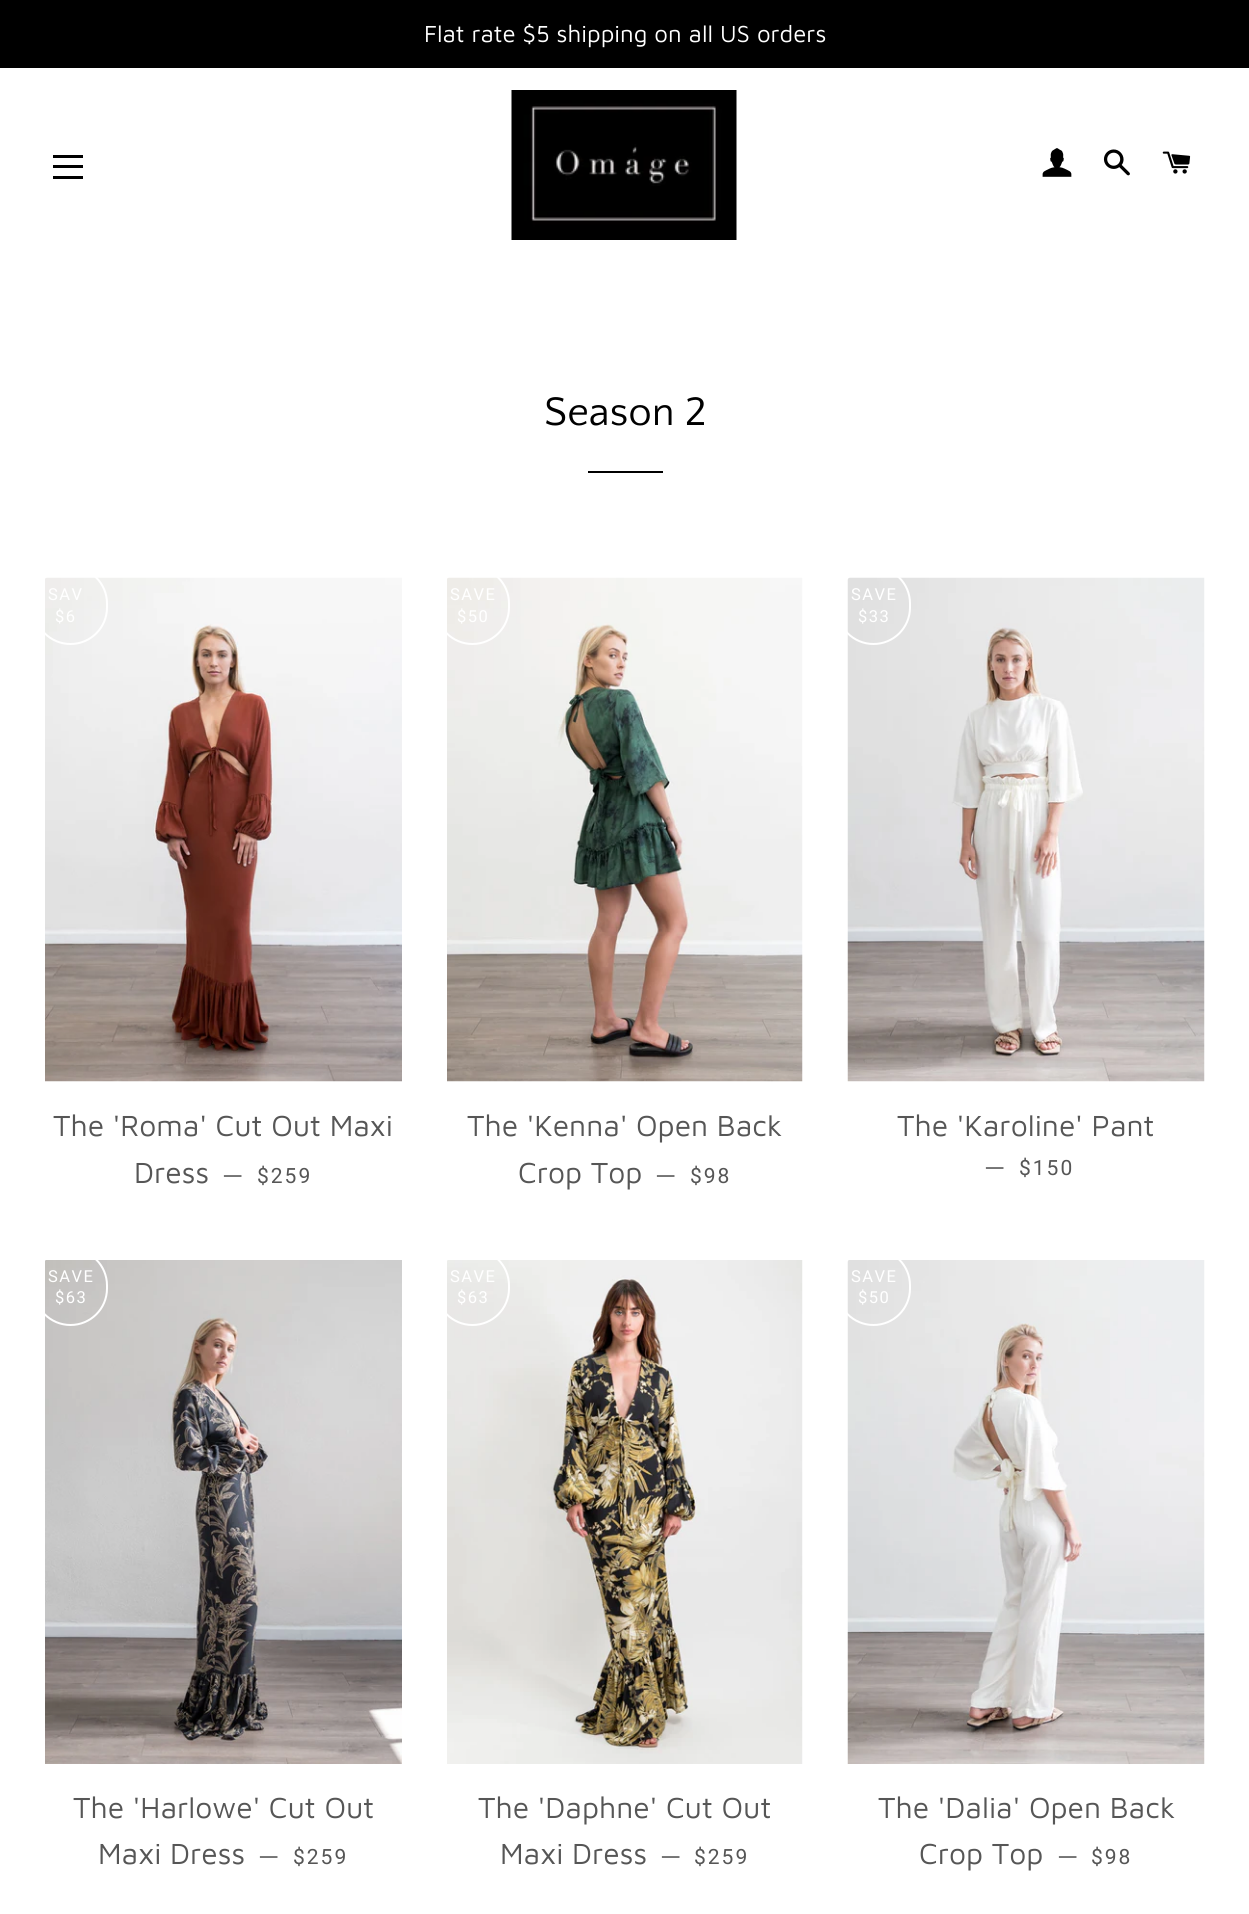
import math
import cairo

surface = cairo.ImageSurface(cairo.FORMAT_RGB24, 1249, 1914)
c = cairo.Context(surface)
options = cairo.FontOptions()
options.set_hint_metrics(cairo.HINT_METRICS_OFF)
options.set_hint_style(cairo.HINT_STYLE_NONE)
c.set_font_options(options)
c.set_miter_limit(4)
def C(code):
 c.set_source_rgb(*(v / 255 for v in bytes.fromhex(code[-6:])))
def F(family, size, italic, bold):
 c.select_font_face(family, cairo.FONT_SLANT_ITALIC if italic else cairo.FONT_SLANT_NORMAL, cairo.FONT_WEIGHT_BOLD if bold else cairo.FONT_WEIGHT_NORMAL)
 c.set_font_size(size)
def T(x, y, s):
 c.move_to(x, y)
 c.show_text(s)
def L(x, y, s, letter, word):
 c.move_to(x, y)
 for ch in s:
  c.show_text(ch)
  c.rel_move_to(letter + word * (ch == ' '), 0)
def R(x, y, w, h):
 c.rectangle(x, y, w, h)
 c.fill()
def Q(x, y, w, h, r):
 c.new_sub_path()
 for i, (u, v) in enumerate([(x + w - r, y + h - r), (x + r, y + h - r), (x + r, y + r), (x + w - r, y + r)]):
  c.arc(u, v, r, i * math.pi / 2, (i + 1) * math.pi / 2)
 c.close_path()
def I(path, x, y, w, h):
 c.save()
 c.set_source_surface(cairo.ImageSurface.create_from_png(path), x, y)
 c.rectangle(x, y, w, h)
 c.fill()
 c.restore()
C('ffffff')
c.paint()
C('000000')
R(0,0,1249,68)
F('Maven Pro',24,0,0)
C('ffffff')
T(424,42,'Flat rate $5 shipping on all US orders')
C('000000')
R(53,155,30,3)
R(53,165,30,3)
R(53,176,30,3)
I('1.png',511,90,226,150)
I('2.png',1042,148,30,29)
I('3.png',1103,149,27,27)
I('4.png',1162,151,29,23)
F('Quattrocento Sans',42,0,0)
T(544,425,'Season 2')
R(588,471,75,2)
I('5.png',45,577,357,505)
Q(34,567,73,77,36.5)
C('ffffff')
c.stroke()
F('Roboto',16.5,0,0)
L(48,600,'SAV',1.5,0)
L(55,622,'$6',1.5,0)
F('Maven Pro',30,0,0)
C('565656')
T(53,1136,'The \'Roma\' Cut Out Maxi')
T(134,1183,'Dress')
F('Maven Pro',24,0,0)
T(222,1183,'—')
F('Roboto',21,0,0)
L(257,1183,'$259',2,0)
I('6.png',447,577,356,505)
Q(436,567,73,77,36.5)
C('ffffff')
c.stroke()
F('Roboto',16.5,0,0)
L(450,600,'SAVE',1.5,0)
L(457,622,'$50',1.5,0)
F('Maven Pro',30,0,0)
C('565656')
T(467,1136,'The \'Kenna\' Open Back')
T(518,1183,'Crop Top')
F('Maven Pro',24,0,0)
T(655,1183,'—')
F('Roboto',21,0,0)
L(690,1183,'$98',2,0)
I('7.png',847,577,358,505)
Q(837,567,73,77,36.5)
C('ffffff')
c.stroke()
F('Roboto',16.5,0,0)
L(851,600,'SAVE',1.5,0)
L(858,622,'$33',1.5,0)
F('Maven Pro',30,0,0)
C('565656')
T(897,1136,'The \'Karoline\' Pant')
F('Maven Pro',24,0,0)
T(984,1175,'—')
F('Roboto',21,0,0)
L(1019,1175,'$150',2,0)
I('8.png',45,1260,357,504)
Q(34,1249,73,76,36.5)
C('ffffff')
c.stroke()
F('Roboto',16.5,0,0)
L(48,1282,'SAVE',1.5,0)
L(55,1303,'$63',1.5,0)
F('Maven Pro',30,0,0)
C('565656')
T(73,1818,'The \'Harlowe\' Cut Out')
T(98,1864,'Maxi Dress')
F('Maven Pro',24,0,0)
T(258,1864,'—')
F('Roboto',21,0,0)
L(293,1864,'$259',2,0)
I('9.png',447,1260,356,504)
Q(436,1249,73,76,36.5)
C('ffffff')
c.stroke()
F('Roboto',16.5,0,0)
L(450,1282,'SAVE',1.5,0)
L(457,1303,'$63',1.5,0)
F('Maven Pro',30,0,0)
C('565656')
T(478,1818,'The \'Daphne\' Cut Out')
T(500,1864,'Maxi Dress')
F('Maven Pro',24,0,0)
T(660,1864,'—')
F('Roboto',21,0,0)
L(694,1864,'$259',2,0)
I('10.png',847,1260,358,504)
Q(837,1249,73,76,36.5)
C('ffffff')
c.stroke()
F('Roboto',16.5,0,0)
L(851,1282,'SAVE',1.5,0)
L(858,1303,'$50',1.5,0)
F('Maven Pro',30,0,0)
C('565656')
T(878,1818,'The \'Dalia\' Open Back')
T(919,1864,'Crop Top')
F('Maven Pro',24,0,0)
T(1057,1864,'—')
F('Roboto',21,0,0)
L(1091,1864,'$98',2,0)
surface.write_to_png('o.png')
